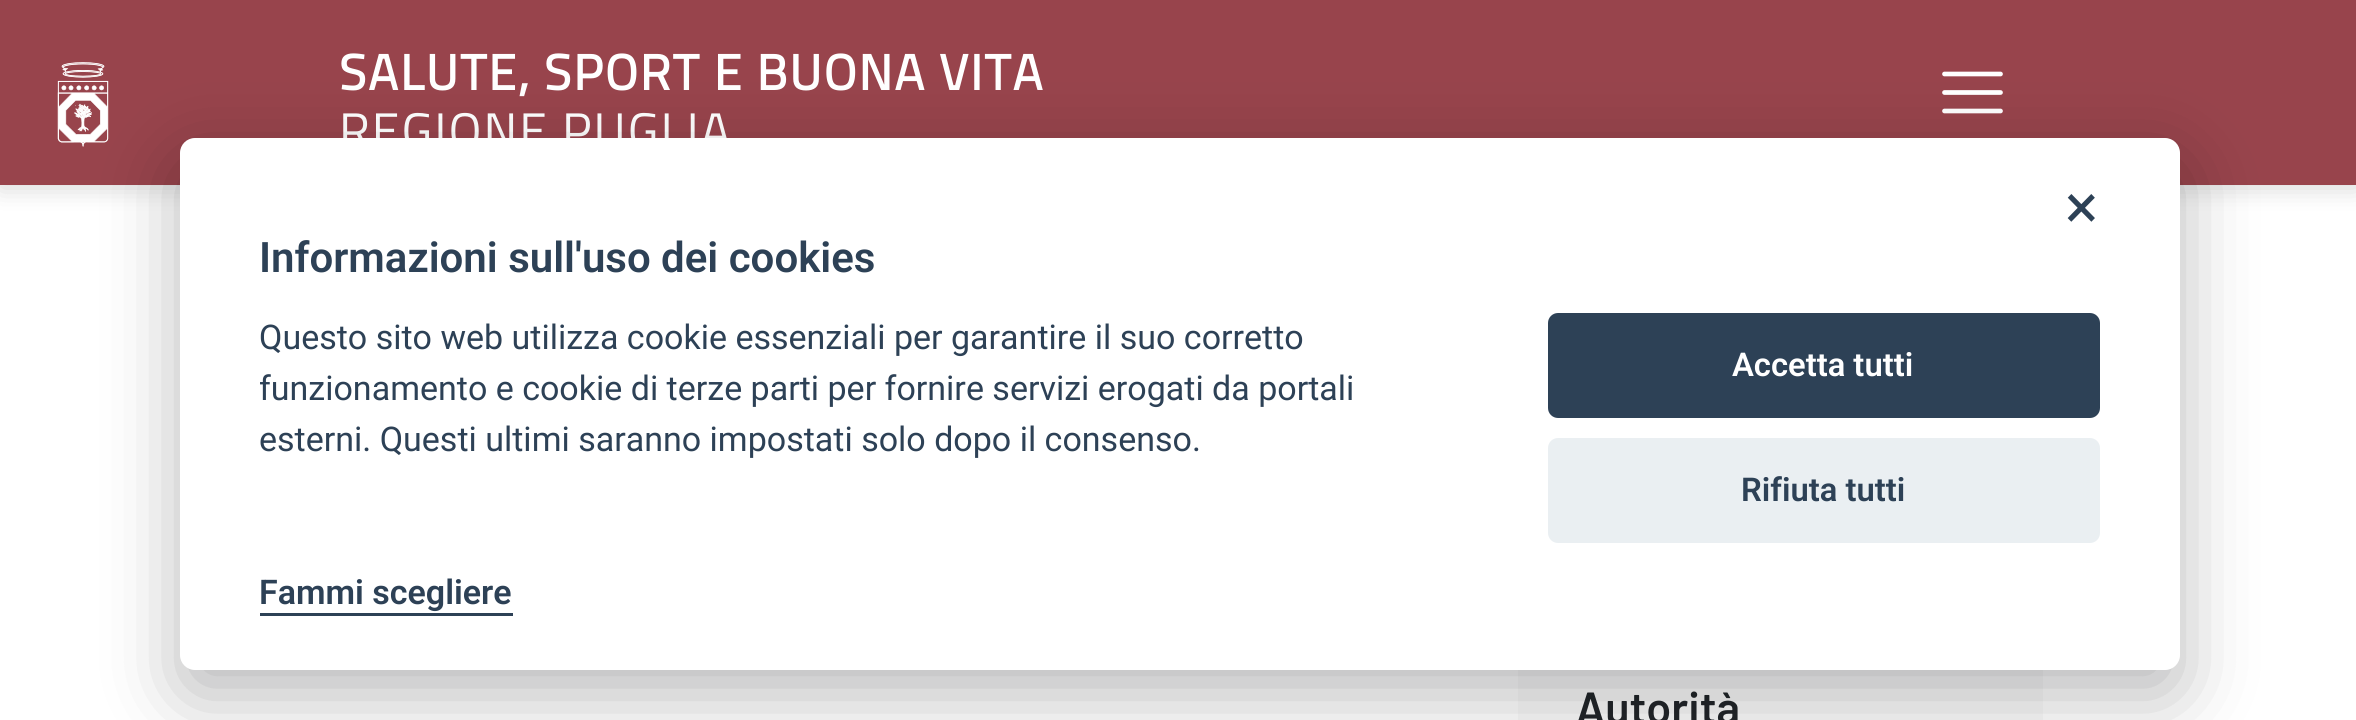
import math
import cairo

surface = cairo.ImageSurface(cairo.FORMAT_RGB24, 2356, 720)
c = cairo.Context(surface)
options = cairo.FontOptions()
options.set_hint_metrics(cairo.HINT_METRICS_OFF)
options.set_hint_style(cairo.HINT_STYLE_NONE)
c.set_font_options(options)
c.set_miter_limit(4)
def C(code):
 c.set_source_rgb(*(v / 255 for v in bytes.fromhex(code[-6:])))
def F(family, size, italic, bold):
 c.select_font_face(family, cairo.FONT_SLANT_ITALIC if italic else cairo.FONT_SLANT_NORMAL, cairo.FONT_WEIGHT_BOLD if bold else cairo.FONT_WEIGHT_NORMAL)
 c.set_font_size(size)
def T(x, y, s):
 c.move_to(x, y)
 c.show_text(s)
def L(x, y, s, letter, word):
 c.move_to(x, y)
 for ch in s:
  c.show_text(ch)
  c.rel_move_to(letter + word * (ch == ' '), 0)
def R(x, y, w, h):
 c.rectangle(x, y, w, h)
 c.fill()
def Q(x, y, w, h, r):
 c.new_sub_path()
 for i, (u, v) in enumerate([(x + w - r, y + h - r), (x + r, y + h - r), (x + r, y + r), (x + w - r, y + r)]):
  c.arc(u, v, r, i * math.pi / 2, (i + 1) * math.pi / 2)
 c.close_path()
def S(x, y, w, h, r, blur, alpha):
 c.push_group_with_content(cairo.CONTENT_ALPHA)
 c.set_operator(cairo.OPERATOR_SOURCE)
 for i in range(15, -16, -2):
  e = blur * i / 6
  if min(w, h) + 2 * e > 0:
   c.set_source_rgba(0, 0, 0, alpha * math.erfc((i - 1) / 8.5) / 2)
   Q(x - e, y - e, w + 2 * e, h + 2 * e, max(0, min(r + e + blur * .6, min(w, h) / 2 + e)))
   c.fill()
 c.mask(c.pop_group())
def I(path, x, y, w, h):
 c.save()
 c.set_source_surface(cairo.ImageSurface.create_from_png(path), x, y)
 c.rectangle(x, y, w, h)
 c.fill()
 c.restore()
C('ffffff')
c.paint()
C('000000')
S(0,3,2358,185,0,12.5,.16)
C('98444c')
R(0,0,2356,185)
I('1.png',57,62,52,85)
F('Titillium Web',50,0,1)
C('ffffff')
L(339,90,'SALUTE, SPORT E BUONA VITA',2,0)
F('Titillium Web',50,0,0)
L(339,148,'REGIONE PUGLIA',2,0)
c.new_path()
c.move_to(1944.5,74)
c.line_to(2000.5,74)
c.move_to(1944.5,92.5)
c.line_to(2000.5,92.5)
c.move_to(1944.5,111)
c.line_to(2000.5,111)
c.set_line_width(4.7)
c.set_line_cap(cairo.LINE_CAP_ROUND)
c.stroke()
C('f9f9f9')
R(1518,670,525,50)
F('Barlow SemiBold',45,0,0)
C('212529')
T(1576,724,'Autorità')
C('020203')
S(180,163,2000,532,15,37.5,.28)
C('ffffff')
Q(180,138,2000,532,15)
c.fill()
F('Roboto',62,0,0)
C('2d4156')
T(2065,228,'×')
F('Roboto SemiBold',42,0,0)
T(259,272,'Informazioni sull\'uso dei cookies')
F('Roboto',34,0,0)
T(259,349,'Questo sito web utilizza cookie essenziali per garantire il suo corretto')
T(259,400,'funzionamento e cookie di terze parti per fornire servizi erogati da portali')
T(259,451,'esterni. Questi ultimi saranno impostati solo dopo il consenso.')
F('Roboto SemiBold',34,0,0)
T(259,604,'Fammi scegliere')
R(260,613,253,3)
Q(1548,313,552,105,10)
c.fill()
F('Roboto SemiBold',32.75,0,0)
C('ffffff')
T(1732,376,'Accetta tutti')
C('eaeff2')
Q(1548,438,552,105,10)
c.fill()
C('2d4156')
T(1741,501,'Rifiuta tutti')
surface.write_to_png('o.png')
